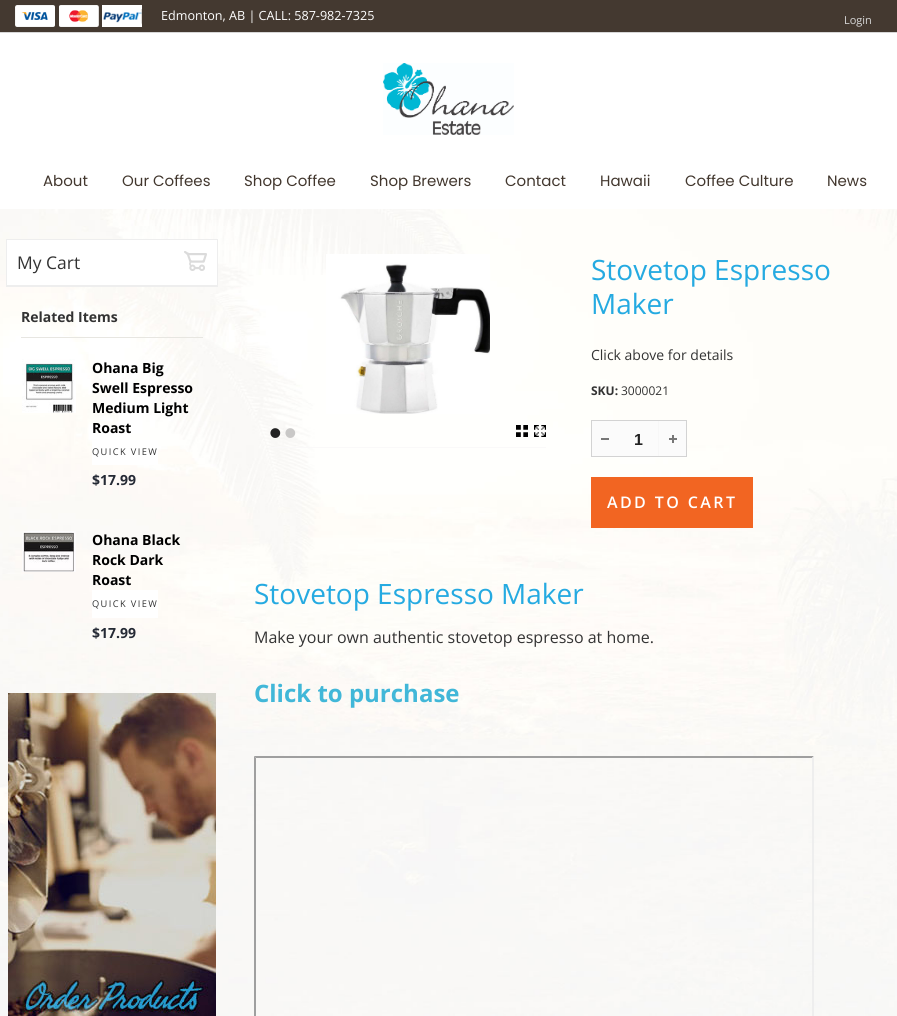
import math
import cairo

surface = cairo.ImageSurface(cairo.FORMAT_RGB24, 897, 1016)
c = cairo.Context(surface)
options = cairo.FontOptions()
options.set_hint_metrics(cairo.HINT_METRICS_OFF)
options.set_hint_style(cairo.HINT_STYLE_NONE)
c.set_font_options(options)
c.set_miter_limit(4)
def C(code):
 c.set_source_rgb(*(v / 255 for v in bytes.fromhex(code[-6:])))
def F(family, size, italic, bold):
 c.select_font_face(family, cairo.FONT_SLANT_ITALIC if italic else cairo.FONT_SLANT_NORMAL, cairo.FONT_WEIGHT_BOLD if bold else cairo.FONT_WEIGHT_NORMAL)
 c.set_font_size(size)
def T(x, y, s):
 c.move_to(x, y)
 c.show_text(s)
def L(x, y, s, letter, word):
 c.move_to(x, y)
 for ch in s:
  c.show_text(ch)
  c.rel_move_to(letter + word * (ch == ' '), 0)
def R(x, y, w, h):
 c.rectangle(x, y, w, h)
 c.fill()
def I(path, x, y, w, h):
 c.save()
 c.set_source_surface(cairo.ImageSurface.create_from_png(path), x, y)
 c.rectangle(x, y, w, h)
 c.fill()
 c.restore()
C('ffffff')
c.paint()
I('1.png',0,209,897,807)
C('443930')
R(0,0,897,32)
C('d7d7d7')
R(0,32,897,1)
I('2.png',15,5,40,22)
I('3.png',59,5,40,22)
I('4.png',102,5,40,22)
F('Open Sans',12.6,0,0)
C('ffffff')
T(161,20,'Edmonton, AB | CALL: 587-982-7325')
F('Open Sans',11,0,0)
C('d7d7d7')
T(844,24,'Login')
I('5.png',383,63,131,72)
F('Poppins',15,0,0)
C('42372e')
T(43,186,'About')
T(122,186,'Our Coffees')
T(244,186,'Shop Coffee')
T(370,186,'Shop Brewers')
T(505,186,'Contact')
T(600,186,'Hawaii')
T(685,186,'Coffee Culture')
T(827,186,'News')
c.rectangle(6.5,239.5,211,47)
C('eeeeee')
c.set_line_width(1)
c.stroke()
C('ffffff')
R(7,240,210,45)
C('eeeeee')
R(7,285,210,1)
F('Open Sans',17.5,0,0)
C('333333')
T(17,269,'My Cart')
I('6.png',184,251,23,20)
C('e7e6e1')
R(21,337,182,1)
F('Open Sans',14,0,1)
C('333333')
T(21,322,'Related Items')
I('7.png',22,359,54,54)
C('000000')
T(92,373,'Ohana Big')
T(92,393,'Swell Espresso')
T(92,413,'Medium Light')
T(92,433,'Roast')
C('ffffff')
R(92,440,66,25)
F('Open Sans',9.25,0,0)
C('333333')
L(92,455,'QUICK VIEW',1.4,0)
F('Open Sans',14,0,1)
C('252a35')
T(92,485,'$17.99')
I('8.png',22,531,54,41)
C('000000')
T(92,545,'Ohana Black')
T(92,565,'Rock Dark')
T(92,585,'Roast')
C('ffffff')
R(92,590,66,28)
F('Open Sans',9.25,0,0)
C('333333')
L(92,607,'QUICK VIEW',1.4,0)
F('Open Sans',14,0,1)
C('252a35')
T(92,638,'$17.99')
I('9.png',8,693,208,323)
C('faf9f9')
R(269,447,277,1)
I('10.png',326,254,164,160)
F('Liberation Sans',36,0,0)
C('222222')
T(269,445,'•')
C('c9c8c7')
T(284,445,'•')
I('11.png',516,425,12,12)
I('12.png',534,425,12,12)
F('Open Sans',28,0,0)
C('25aae1')
T(591,280,'Stovetop Espresso')
T(591,314,'Maker')
F('Open Sans',14,0,0)
C('333333')
T(591,360,'Click above for details')
F('Open Sans',12,0,1)
T(591,395,'SKU:')
F('Open Sans',12,0,0)
T(621,395,'3000021')
C('fbfbfb')
c.rectangle(591.5,420.5,95,36)
c.fill_preserve()
C('d3d3d3')
c.stroke()
C('777777')
R(601,438,8,2)
F('Liberation Sans',16,0,1)
C('222222')
T(634,445,'1')
C('f7f7f7')
R(658,421,1,35)
I('13.png',669,435,8,8)
C('f26522')
R(591,477,162,51)
F('Open Sans SemiBold',16,0,0)
C('ffffff')
L(607,508,'ADD TO CART',2.4,0)
F('Open Sans',28,0,0)
C('25aae1')
T(254,604,'Stovetop Espresso Maker')
F('Open Sans',16,0,0)
C('333333')
T(254,643,'Make your own authentic stovetop espresso at home.')
F('Open Sans',24,0,1)
C('41b7d8')
T(254,702,'Click to purchase')
C('9f9f9f')
c.new_path()
c.move_to(254,756)
c.line_to(814,756)
c.line_to(812,758)
c.line_to(256,758)
c.close_path()
c.fill()
c.new_path()
c.move_to(254,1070)
c.line_to(254,756)
c.line_to(256,758)
c.line_to(256,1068)
c.close_path()
c.fill()
C('eeeeee')
c.new_path()
c.move_to(814,756)
c.line_to(814,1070)
c.line_to(812,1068)
c.line_to(812,758)
c.close_path()
c.fill()
surface.write_to_png('o.png')
